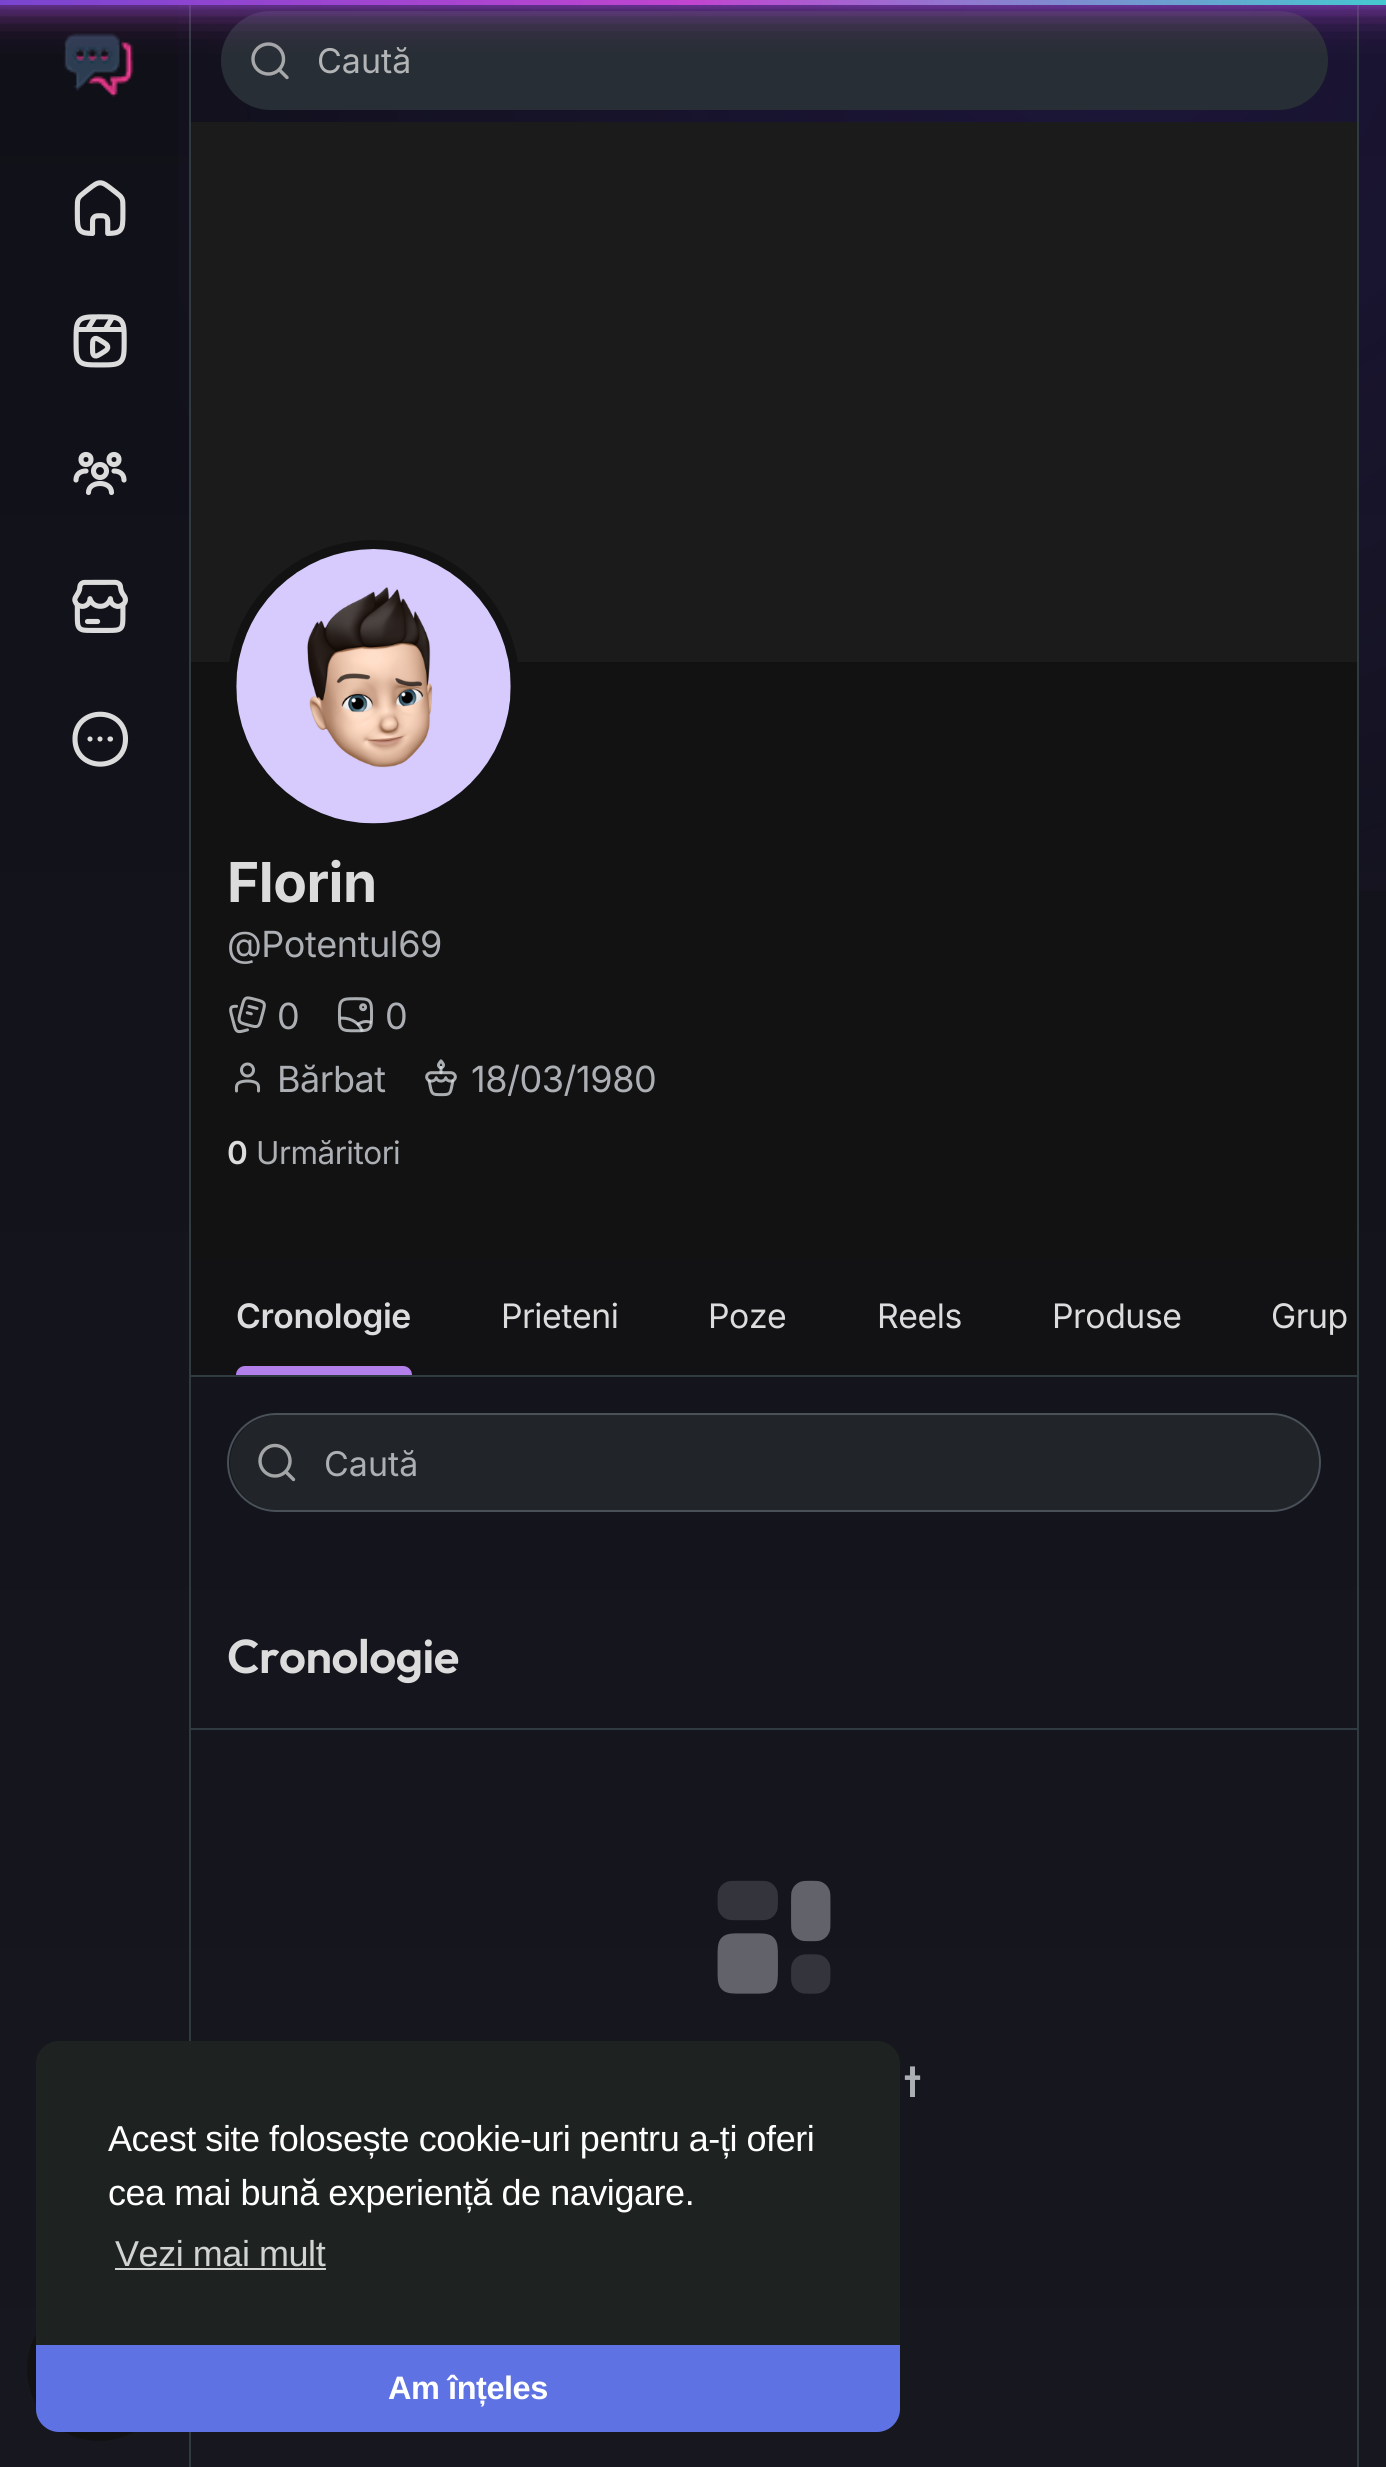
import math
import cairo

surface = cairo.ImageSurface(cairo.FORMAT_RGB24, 1386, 2467)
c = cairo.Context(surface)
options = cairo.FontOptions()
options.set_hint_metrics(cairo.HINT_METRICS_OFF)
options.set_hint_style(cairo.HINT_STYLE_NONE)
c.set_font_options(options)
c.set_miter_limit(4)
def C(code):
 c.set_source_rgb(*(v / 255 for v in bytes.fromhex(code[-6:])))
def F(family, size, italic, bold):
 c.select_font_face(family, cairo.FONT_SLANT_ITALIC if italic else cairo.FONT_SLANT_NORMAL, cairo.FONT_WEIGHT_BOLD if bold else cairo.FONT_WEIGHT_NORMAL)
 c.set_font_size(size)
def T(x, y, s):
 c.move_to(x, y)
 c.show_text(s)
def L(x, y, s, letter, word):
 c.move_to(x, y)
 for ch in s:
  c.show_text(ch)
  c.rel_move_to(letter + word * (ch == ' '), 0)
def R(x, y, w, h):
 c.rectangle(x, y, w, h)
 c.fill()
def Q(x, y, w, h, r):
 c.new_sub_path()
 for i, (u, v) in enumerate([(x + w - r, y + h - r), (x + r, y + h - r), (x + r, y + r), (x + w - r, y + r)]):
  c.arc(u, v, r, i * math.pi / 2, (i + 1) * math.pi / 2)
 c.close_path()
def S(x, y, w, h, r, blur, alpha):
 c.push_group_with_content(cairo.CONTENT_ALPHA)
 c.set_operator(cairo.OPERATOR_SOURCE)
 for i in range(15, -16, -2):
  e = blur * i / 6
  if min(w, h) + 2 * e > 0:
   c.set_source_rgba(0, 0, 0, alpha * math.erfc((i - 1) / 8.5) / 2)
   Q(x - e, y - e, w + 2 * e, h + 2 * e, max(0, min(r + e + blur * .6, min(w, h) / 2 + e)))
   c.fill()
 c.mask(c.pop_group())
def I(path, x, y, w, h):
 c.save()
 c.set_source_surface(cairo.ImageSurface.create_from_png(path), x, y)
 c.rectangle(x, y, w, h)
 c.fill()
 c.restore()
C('ffffff')
c.paint()
gradient = cairo.LinearGradient(693,0,693,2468)
gradient.add_color_stop_rgba(0,0.063,0.063,0.094,1)
gradient.add_color_stop_rgba(1,0.09,0.09,0.125,1)
c.set_source(gradient)
R(0,5,1386,2462)
gradient = cairo.RadialGradient(1109,0,0,1109,0,2706)
gradient.add_color_stop_rgba(0,0.392,0.196,0.98,.15)
gradient.add_color_stop_rgba(.4,0.392,0.196,0.98,0)
c.set_source(gradient)
R(178,5,1208,886)
C('272e35')
Q(222,12,1105,97,48.5)
c.fill_preserve()
c.stroke()
c.new_path()
c.move_to(279.5,70)
c.line_to(287,77.5)
C('a6a8aa')
c.set_line_width(3.4)
c.set_line_cap(cairo.LINE_CAP_ROUND)
c.set_line_join(cairo.LINE_JOIN_ROUND)
c.stroke()
c.new_path()
c.move_to(283.5,59)
c.curve_to(283.5,50.5,276.5,44,268.5,44)
c.curve_to(260,44,253,50.5,253,59)
c.curve_to(253,67.5,260,74,268.5,74)
c.curve_to(276.5,74,283.5,67.5,283.5,59)
c.close_path()
c.set_line_cap(cairo.LINE_CAP_BUTT)
c.stroke()
C('303a41')
R(189,0,2,2467)
I('1.png',63,33,71,64)
R(1357,0,2,2467)
C('c145d0')
S(0,0,1386,5,0,22.5,.7)
C('7945d0')
S(0,0,1386,5,0,11,.7)
gradient = cairo.LinearGradient(0,2.3,1386,2.2)
gradient.add_color_stop_rgba(0,0.475,0.271,0.816,1)
gradient.add_color_stop_rgba(.5,0.757,0.271,0.816,1)
gradient.add_color_stop_rgba(1,0.271,0.784,0.816,1)
c.set_source(gradient)
R(0,0,1386,5)
F('Inter',34,0,0)
C('b2b4b6')
T(317,73,'Caută')
I('2.png',74,180,52,56)
I('3.png',73,314,54,54)
c.new_path()
c.move_to(88.5,492.5)
c.curve_to(88.5,480.5,111.5,480.5,111.5,492.5)
C('dcdcdc')
c.set_line_width(5.1)
c.set_line_cap(cairo.LINE_CAP_ROUND)
c.stroke()
c.arc(100,471,6.5,0,2 * math.pi)
c.set_line_cap(cairo.LINE_CAP_BUTT)
c.set_line_join(cairo.LINE_JOIN_MITER)
c.stroke()
c.new_path()
c.move_to(114,471)
c.curve_to(119.5,471,124,474,124,480)
c.set_line_cap(cairo.LINE_CAP_ROUND)
c.set_line_join(cairo.LINE_JOIN_ROUND)
c.stroke()
c.arc(114,459.5,5,0,2 * math.pi)
c.set_line_cap(cairo.LINE_CAP_BUTT)
c.set_line_join(cairo.LINE_JOIN_MITER)
c.stroke()
c.new_path()
c.move_to(86,471)
c.curve_to(80.5,471,76,474,76,480)
c.set_line_cap(cairo.LINE_CAP_ROUND)
c.set_line_join(cairo.LINE_JOIN_ROUND)
c.stroke()
c.arc(86,459.5,5,0,2 * math.pi)
c.set_line_cap(cairo.LINE_CAP_BUTT)
c.set_line_join(cairo.LINE_JOIN_MITER)
c.stroke()
I('4.png',72,579,56,54)
c.new_path()
c.move_to(100,739)
c.line_to(100,739)
c.move_to(110,739)
c.line_to(110.5,739)
c.move_to(90,739)
c.line_to(90,739)
c.set_line_cap(cairo.LINE_CAP_ROUND)
c.set_line_join(cairo.LINE_JOIN_ROUND)
c.stroke()
c.new_path()
c.move_to(125.5,739)
c.curve_to(125.5,706,75,706,75,739)
c.curve_to(75,772.5,125.5,772.5,125.5,739)
c.close_path()
c.set_line_cap(cairo.LINE_CAP_BUTT)
c.set_line_join(cairo.LINE_JOIN_MITER)
c.stroke()
C('121212')
c.arc(99,2369,72,0,2 * math.pi)
c.fill()
R(191,662,1166,596)
C('1b1b1b')
R(191,122,1166,540)
C('121212')
c.arc(373.5,686.5,146.5,0,2 * math.pi)
c.fill()
I('5.png',236,549,275,275)
F('Inter',55,0,1)
C('dcdcdc')
L(227,902,'Florin',-.45,0)
F('Inter',36,0,0)
C('acafb4')
L(227,957,'@Potentul69',-.45,0)
I('6.png',229,996,37,38)
L(277,1029,'0',-.45,0)
I('7.png',337,997,37,36)
L(385,1029,'0',-.45,0)
c.new_path()
c.move_to(258.5,1091)
c.curve_to(258.5,1089,259,1086,257.5,1084)
c.curve_to(254.5,1080,240.5,1080,237.5,1084)
c.curve_to(236,1086,236.5,1089,236.5,1091)
C('abaeb1')
c.set_line_width(3)
c.set_line_cap(cairo.LINE_CAP_ROUND)
c.set_line_join(cairo.LINE_JOIN_ROUND)
c.stroke()
c.arc(247.5,1070,6,0,2 * math.pi)
c.set_line_cap(cairo.LINE_CAP_BUTT)
c.set_line_join(cairo.LINE_JOIN_MITER)
c.stroke()
C('acafb4')
L(277,1092,'Bărbat',-.45,0)
I('8.png',425,1059,32,38)
L(471,1092,'18/03/1980',-.45,0)
F('Inter SemiBold',31.5,0,0)
C('dcdcdc')
L(227,1164,'0',-.45,0)
F('Inter',31.5,0,0)
C('acafb4')
L(256,1164,'Urmăritori',-.45,0)
C('303a41')
R(191,1375,1166,2)
C('121214')
R(191,1258,1166,117)
F('Inter SemiBold',33.75,0,0)
C('dcdcdc')
L(236,1328,'Cronologie',-.45,0)
C('b37feb')
c.new_path()
c.move_to(245,1366)
c.line_to(403,1366)
c.curve_to(408,1366,412,1370,412,1375)
c.line_to(236,1375)
c.curve_to(236,1370,240,1366,245,1366)
c.close_path()
c.fill()
F('Inter',33.75,0,0)
C('dcdcdc')
L(501,1328,'Prieteni',-.45,0)
L(708,1328,'Poze',-.45,0)
L(877,1328,'Reels',-.45,0)
L(1052,1328,'Produse',-.45,0)
L(1271,1328,'Grup',-.45,0)
C('212529')
Q(230,1415,1089,95,47.5)
c.fill()
Q(228,1414,1092,97,48.5)
C('495057')
c.set_line_width(2)
c.stroke()
c.new_path()
c.move_to(286,1472)
c.line_to(293.5,1479.5)
C('a4a5a6')
c.set_line_width(3.4)
c.set_line_cap(cairo.LINE_CAP_ROUND)
c.set_line_join(cairo.LINE_JOIN_ROUND)
c.stroke()
c.new_path()
c.move_to(290,1461)
c.curve_to(290,1452.5,283.5,1445.5,275,1445.5)
c.curve_to(266.5,1445.5,260,1452.5,260,1461)
c.curve_to(260,1469,266.5,1476,275,1476)
c.curve_to(283.5,1476,290,1469,290,1461)
c.close_path()
c.set_line_cap(cairo.LINE_CAP_BUTT)
c.stroke()
F('Inter',34,0,0)
C('acafb4')
T(324,1476,'Caută')
C('303a41')
R(191,1728,1166,2)
F('Outfit SemiBold',47.25,0,0)
C('dcdcdc')
L(227,1673,'Cronologie',-.45,0)
I('9.png',717,1880,114,114)
F('Outfit Medium',45,0,0)
C('acafb4')
L(904,2097,'t',-.45,0)
C('1e2321')
Q(36,2041,864,391,23)
c.fill()
F('Liberation Sans',36,0,0)
C('ffffff')
L(108,2151,'Acest site folosește cookie-uri pentru a-ți oferi',-.45,0)
L(108,2205,'cea mai bună experiență de navigare.',-.45,0)
C('d2d3d3')
L(115,2266,'Vezi mai mult',-.45,0)
R(115,2268,211,2)
C('5e72e4')
c.new_path()
c.move_to(36,2345)
c.line_to(900,2345)
c.line_to(900,2409)
c.curve_to(900,2421.5,889.5,2432,877,2432)
c.line_to(59,2432)
c.curve_to(46.5,2432,36,2421.5,36,2409)
c.close_path()
c.fill()
F('Liberation Sans',32.5,0,1)
C('ffffff')
L(388,2399,'Am înțeles',-.45,0)
surface.write_to_png('o.png')
